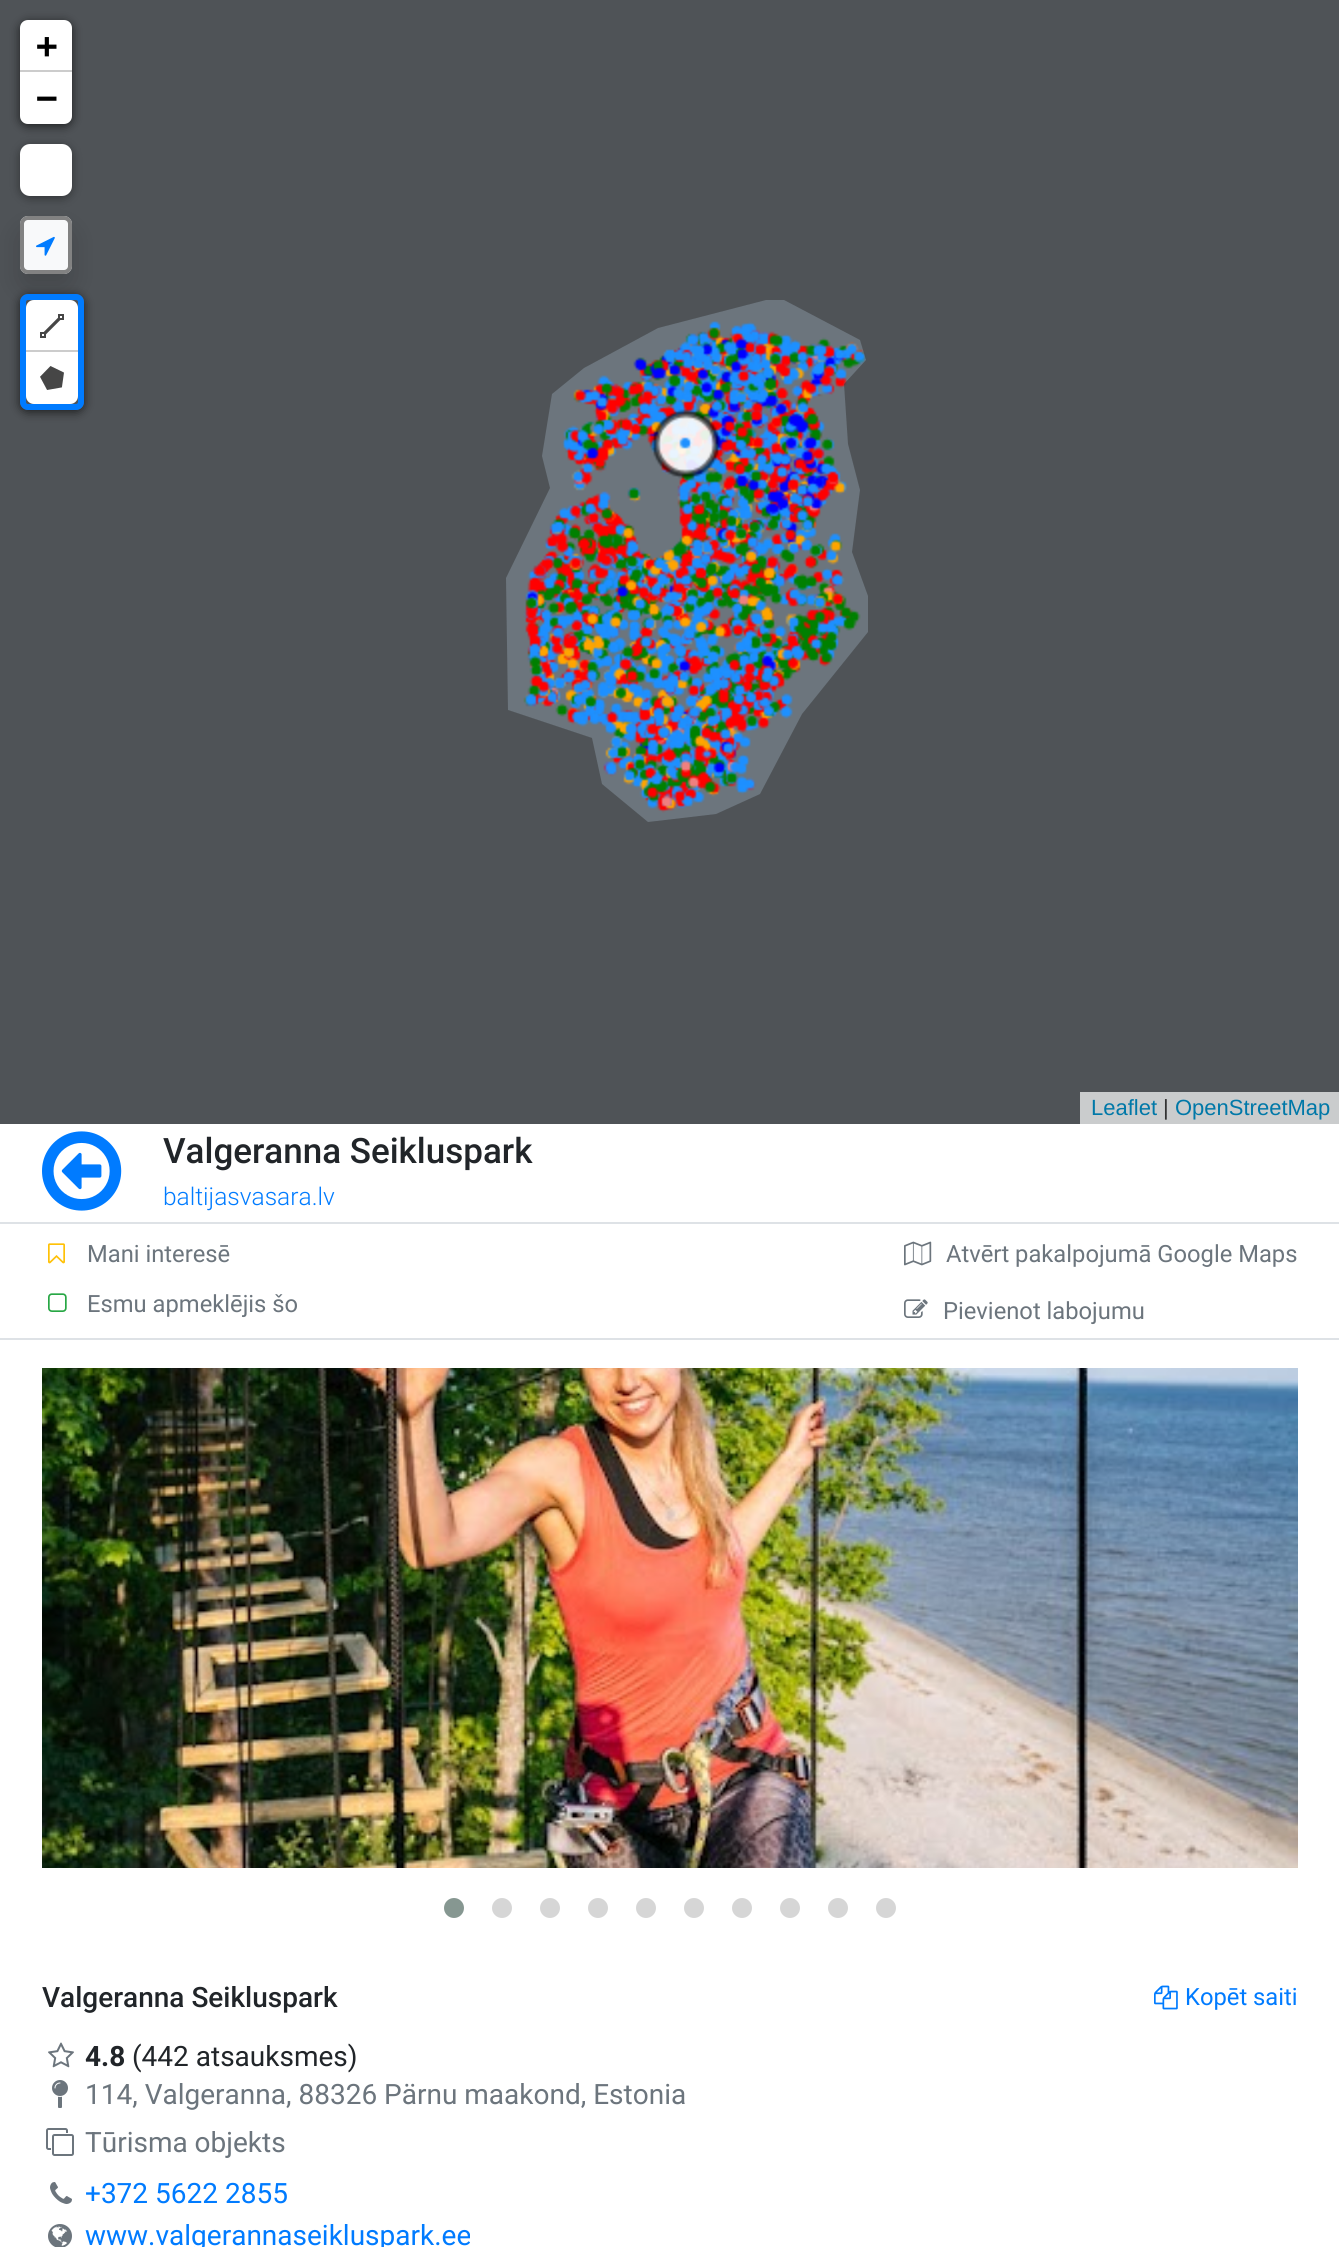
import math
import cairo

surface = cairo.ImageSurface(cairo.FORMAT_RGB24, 1339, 2247)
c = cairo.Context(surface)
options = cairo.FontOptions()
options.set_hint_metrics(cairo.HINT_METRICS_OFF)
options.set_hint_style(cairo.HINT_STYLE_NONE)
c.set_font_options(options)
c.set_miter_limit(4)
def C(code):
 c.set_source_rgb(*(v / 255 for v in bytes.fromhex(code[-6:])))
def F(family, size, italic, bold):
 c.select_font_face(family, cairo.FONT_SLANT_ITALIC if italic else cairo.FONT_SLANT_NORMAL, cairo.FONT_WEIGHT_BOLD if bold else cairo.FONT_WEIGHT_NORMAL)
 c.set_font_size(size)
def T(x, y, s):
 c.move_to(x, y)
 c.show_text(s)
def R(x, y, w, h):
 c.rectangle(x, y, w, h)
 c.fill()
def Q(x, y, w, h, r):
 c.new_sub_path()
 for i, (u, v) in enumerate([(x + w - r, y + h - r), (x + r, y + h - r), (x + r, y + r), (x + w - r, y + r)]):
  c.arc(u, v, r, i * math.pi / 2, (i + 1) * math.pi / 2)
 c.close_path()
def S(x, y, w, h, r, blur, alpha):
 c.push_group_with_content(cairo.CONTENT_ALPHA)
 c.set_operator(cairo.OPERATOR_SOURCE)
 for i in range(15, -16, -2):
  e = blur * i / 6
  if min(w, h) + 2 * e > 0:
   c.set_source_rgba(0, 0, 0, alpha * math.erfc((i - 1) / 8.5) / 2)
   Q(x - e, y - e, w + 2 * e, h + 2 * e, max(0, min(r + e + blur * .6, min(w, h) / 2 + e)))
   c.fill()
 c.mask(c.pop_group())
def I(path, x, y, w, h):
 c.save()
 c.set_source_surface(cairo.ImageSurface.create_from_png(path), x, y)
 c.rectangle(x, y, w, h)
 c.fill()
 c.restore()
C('ffffff')
c.paint()
C('6c757d')
R(0,0,1339,1124)
I('1.png',523,321,344,492)
c.save()
c.rectangle(0,0,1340,1124)
c.clip()
c.set_source_rgba(0.2,0.2,0.2,0.5)
c.set_fill_rule(cairo.FILL_RULE_EVEN_ODD)
c.new_path()
c.move_to(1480,1242)
c.line_to(-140,1242)
c.line_to(-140,-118)
c.line_to(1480,-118)
c.close_path()
c.move_to(584,368)
c.line_to(552,394)
c.line_to(542,456)
c.line_to(550,488)
c.line_to(506,578)
c.line_to(508,710)
c.line_to(592,738)
c.line_to(602,784)
c.line_to(648,822)
c.line_to(716,814)
c.line_to(760,794)
c.line_to(802,714)
c.line_to(868,632)
c.line_to(868,596)
c.line_to(852,552)
c.line_to(860,490)
c.line_to(848,444)
c.line_to(844,384)
c.line_to(866,360)
c.line_to(860,340)
c.line_to(784,300)
c.line_to(766,300)
c.line_to(658,328)
c.close_path()
c.fill()
c.restore()
C('000000')
S(20,22,52,104,8,5,.65)
C('ffffff')
c.new_path()
c.move_to(28,20)
c.line_to(64,20)
c.curve_to(68.5,20,72,23.5,72,28)
c.line_to(72,72)
c.line_to(20,72)
c.line_to(20,28)
c.curve_to(20,23.5,23.5,20,28,20)
c.close_path()
c.fill()
C('cccccc')
R(20,70,52,2)
F('DejaVu Sans Mono',36,0,1)
C('000000')
T(36,58,'+')
C('ffffff')
c.new_path()
c.move_to(20,72)
c.line_to(72,72)
c.line_to(72,116)
c.curve_to(72,120.5,68.5,124,64,124)
c.line_to(28,124)
c.curve_to(23.5,124,20,120.5,20,116)
c.close_path()
c.fill()
C('000000')
T(36,110,'−')
C('000000')
S(20,146,52,52,10,5,.4)
C('ffffff')
Q(20,144,52,52,10)
c.fill()
C('000000')
S(20,230,52,58,8,14,.15)
C('f8f9fa')
Q(20,216,52,58,8)
c.fill()
Q(22,218,48,54,6)
c.set_source_rgba(0.392,0.392,0.392,0.8)
c.set_line_width(4)
c.stroke()
I('2.png',36,236,19,20)
c.save()
c.set_fill_rule(cairo.FILL_RULE_EVEN_ODD)
c.new_path()
c.move_to(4,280)
c.line_to(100,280)
c.line_to(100,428)
c.line_to(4,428)
c.close_path()
c.move_to(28,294)
c.line_to(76,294)
c.curve_to(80.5,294,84,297.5,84,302)
c.line_to(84,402)
c.curve_to(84,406.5,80.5,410,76,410)
c.line_to(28,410)
c.curve_to(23.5,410,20,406.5,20,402)
c.line_to(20,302)
c.curve_to(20,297.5,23.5,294,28,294)
c.close_path()
c.clip()
C('000000')
S(20,296,64,116,8,5,.65)
c.restore()
Q(23,297,58,110,5)
C('007bff')
c.set_line_width(6)
c.stroke()
C('ffffff')
c.new_path()
c.move_to(34,300)
c.line_to(70,300)
c.curve_to(74.5,300,78,303.5,78,308)
c.line_to(78,350)
c.line_to(26,350)
c.line_to(26,308)
c.curve_to(26,303.5,29.5,300,34,300)
c.close_path()
c.fill()
I('3.png',40,314,24,24)
C('cccccc')
R(26,350,52,2)
C('ffffff')
c.new_path()
c.move_to(26,352)
c.line_to(78,352)
c.line_to(78,396)
c.curve_to(78,400.5,74.5,404,70,404)
c.line_to(34,404)
c.curve_to(29.5,404,26,400.5,26,396)
c.close_path()
c.fill()
I('4.png',40,366,24,24)
C('cacccd')
R(1080,1092,259,32)
F('Liberation Sans',22,0,0)
C('0078a8')
T(1091,1115,'Leaflet')
C('333333')
T(1163,1115,'|')
C('0078a8')
T(1175,1115,'OpenStreetMap')
C('dee2e6')
R(0,1222,1339,2)
I('5.png',42,1131,80,80)
F('Roboto Medium',35,0,0)
C('212529')
T(163,1163,'Valgeranna Seikluspark')
F('Roboto Light',24.5,0,0)
C('007bff')
T(163,1205,'baltijasvasara.lv')
C('dee2e6')
R(0,1338,1339,2)
I('6.png',48,1243,17,21)
F('Roboto',23.75,0,0)
C('6c757d')
T(87,1262,'Mani interesē')
I('7.png',48,1293,19,19)
T(87,1312,'Esmu apmeklējis šo')
I('8.png',904,1241,28,25)
T(946,1262,'Atvērt pakalpojumā Google Maps')
I('9.png',904,1299,24,19)
T(943,1319,'Pievienot labojumu')
I('10.png',42,1368,1256,500)
C('869791')
c.arc(454,1908,10,0,2 * math.pi)
c.fill()
C('d6d6d6')
c.arc(502,1908,10,0,2 * math.pi)
c.fill()
c.arc(550,1908,10,0,2 * math.pi)
c.fill()
c.arc(598,1908,10,0,2 * math.pi)
c.fill()
c.arc(646,1908,10,0,2 * math.pi)
c.fill()
c.arc(694,1908,10,0,2 * math.pi)
c.fill()
c.arc(742,1908,10,0,2 * math.pi)
c.fill()
c.arc(790,1908,10,0,2 * math.pi)
c.fill()
c.arc(838,1908,10,0,2 * math.pi)
c.fill()
c.arc(886,1908,10,0,2 * math.pi)
c.fill()
F('Roboto Medium',28,0,0)
C('212529')
T(42,2007,'Valgeranna Seikluspark')
I('11.png',1154,1985,24,25)
F('Roboto',23.75,0,0)
C('007bff')
T(1185,2005,'Kopēt saiti')
I('12.png',48,2042,26,26)
F('Roboto',28,0,1)
C('212529')
T(85,2066,'4.8')
F('Roboto',28,0,0)
T(132,2066,'(442 atsauksmes)')
I('13.png',52,2080,16,28)
C('6c757d')
T(85,2104,'114, Valgeranna, 88326 Pärnu maakond, Estonia')
I('14.png',46,2128,28,28)
T(85,2152,'Tūrisma objekts')
I('15.png',50,2182,22,22)
C('007bff')
T(85,2203,'+372 5622 2855')
I('16.png',48,2224,24,23)
T(85,2245,'www.valgerannaseikluspark.ee')
surface.write_to_png('o.png')
